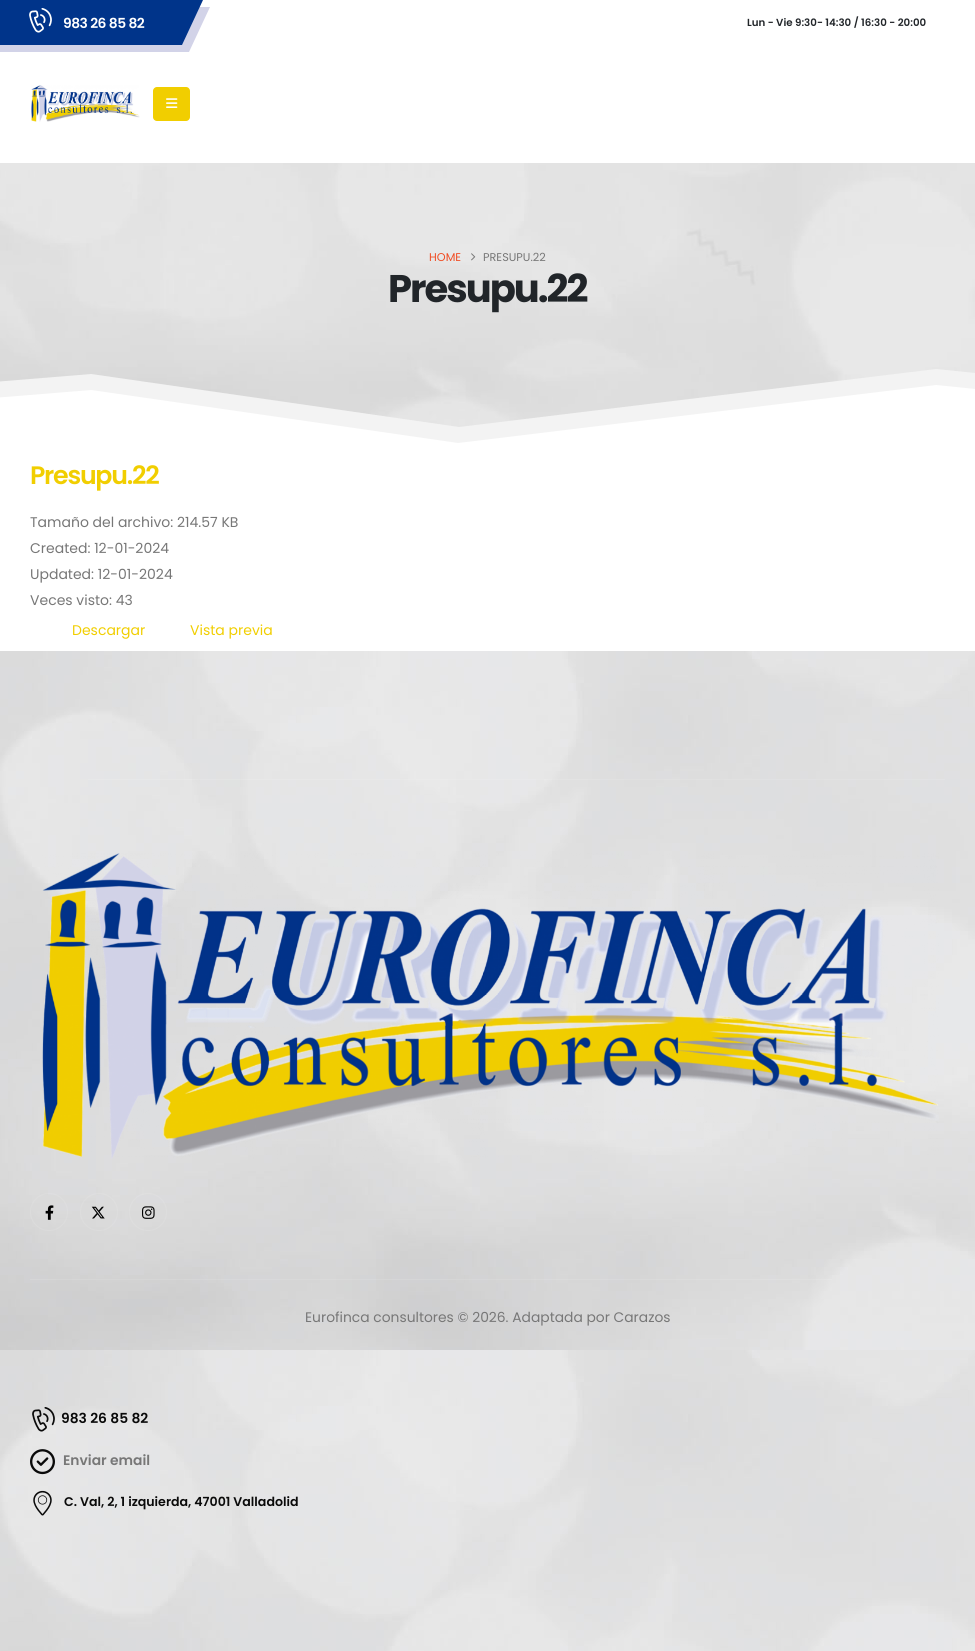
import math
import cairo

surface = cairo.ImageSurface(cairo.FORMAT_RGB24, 975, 1651)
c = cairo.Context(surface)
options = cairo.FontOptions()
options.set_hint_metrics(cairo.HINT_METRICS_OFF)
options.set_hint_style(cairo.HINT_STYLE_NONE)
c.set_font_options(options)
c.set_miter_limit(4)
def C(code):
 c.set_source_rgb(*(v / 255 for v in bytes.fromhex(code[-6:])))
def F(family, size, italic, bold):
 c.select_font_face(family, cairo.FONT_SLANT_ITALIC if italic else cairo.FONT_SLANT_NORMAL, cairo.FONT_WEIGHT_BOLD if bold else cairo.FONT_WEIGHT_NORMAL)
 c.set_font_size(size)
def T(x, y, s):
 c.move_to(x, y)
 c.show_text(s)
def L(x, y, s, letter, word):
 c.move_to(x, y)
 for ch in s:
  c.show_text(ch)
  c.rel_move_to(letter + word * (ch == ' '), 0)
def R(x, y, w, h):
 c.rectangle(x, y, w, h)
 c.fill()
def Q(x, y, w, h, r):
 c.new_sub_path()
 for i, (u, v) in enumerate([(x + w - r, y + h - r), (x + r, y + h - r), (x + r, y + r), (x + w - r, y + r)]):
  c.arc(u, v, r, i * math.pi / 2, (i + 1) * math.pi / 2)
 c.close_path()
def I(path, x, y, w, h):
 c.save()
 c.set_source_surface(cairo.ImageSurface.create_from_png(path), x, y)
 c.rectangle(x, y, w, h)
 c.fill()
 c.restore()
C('ffffff')
c.paint()
C('d2d3e8')
c.new_path()
c.move_to(-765,7)
c.line_to(210,7)
c.line_to(189,52)
c.line_to(-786,52)
c.close_path()
c.fill()
C('00348a')
c.new_path()
c.move_to(-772,0)
c.line_to(203,0)
c.line_to(182,45)
c.line_to(-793,45)
c.close_path()
c.fill()
I('1.png',29,8,23,25)
F('Poppins SemiBold',13.85,0,0)
C('ffffff')
L(63,28,'983 26 85 82',-.5,0)
F('Poppins SemiBold',10.25,0,0)
C('212529')
T(747,26,'Lun - Vie 9:30- 14:30 / 16:30 - 20:00')
I('2.png',31,85,109,37)
C('f1ce00')
Q(153,87,37,34,4)
c.fill()
I('3.png',166,98,12,10)
I('4.png',0,163,975,264)
F('Poppins',11.25,0,0)
C('f04c23')
T(429,261,'HOME')
I('5.png',471,253,5,8)
C('777777')
T(483,261,'PRESUPU.22')
F('Poppins',38.5,0,1)
C('212529')
L(388,302,'Presupu.22',-2,0)
c.save()
c.rectangle(0,340,975,122)
c.clip()
C('f3f3f3')
c.new_path()
c.move_to(-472,372)
c.line_to(-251,402)
c.line_to(91,374)
c.line_to(459,427)
c.line_to(936,369)
c.line_to(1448,421)
c.line_to(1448,463)
c.line_to(-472,463)
c.close_path()
c.fill()
C('ffffff')
c.new_path()
c.move_to(-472,387)
c.line_to(-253,418)
c.line_to(91,390)
c.line_to(458,443)
c.line_to(936,385)
c.line_to(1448,437)
c.line_to(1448,463)
c.line_to(-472,463)
c.close_path()
c.fill()
c.restore()
F('Poppins SemiBold',25.25,0,0)
C('f1ce00')
L(30,484,'Presupu.22',-1.25,0)
F('Poppins',14,0,0)
C('777777')
T(30,527,'Tamaño del archivo: 214.57 KB')
T(30,553,'Created: 12-01-2024')
T(30,579,'Updated: 12-01-2024')
T(30,605,'Veces visto: 43')
C('f1ce00')
T(72,635,'Descargar')
T(190,635,'Vista previa')
I('6.png',0,651,975,1000)
c.set_source_rgba(1,1,1,0.1)
R(88,779,857,1)
I('7.png',42,853,897,306)
c.arc(49,1212,18.5,0,2 * math.pi)
c.set_line_width(1)
c.stroke()
I('8.png',45,1205,9,15)
c.arc(99,1212,18.5,0,2 * math.pi)
c.stroke()
I('9.png',91,1206,14,13)
c.arc(148,1212,18.5,0,2 * math.pi)
c.stroke()
I('10.png',142,1206,13,13)
R(30,1279,802,1)
F('Poppins',13.85,0,0)
C('777777')
T(305,1322,'Eurofinca consultores © 2026. Adaptada por Carazos')
I('11.png',32,1407,23,25)
F('Poppins SemiBold',13.85,0,0)
C('0a0a0a')
T(61,1423,'983 26 85 82')
I('12.png',30,1449,25,26)
C('777777')
T(63,1465,'Enviar email')
I('13.png',33,1490,19,26)
F('Poppins SemiBold',12.6,0,0)
C('0a0a0a')
T(64,1506,'C. Val, 2, 1 izquierda, 47001 Valladolid')
surface.write_to_png('o.png')
